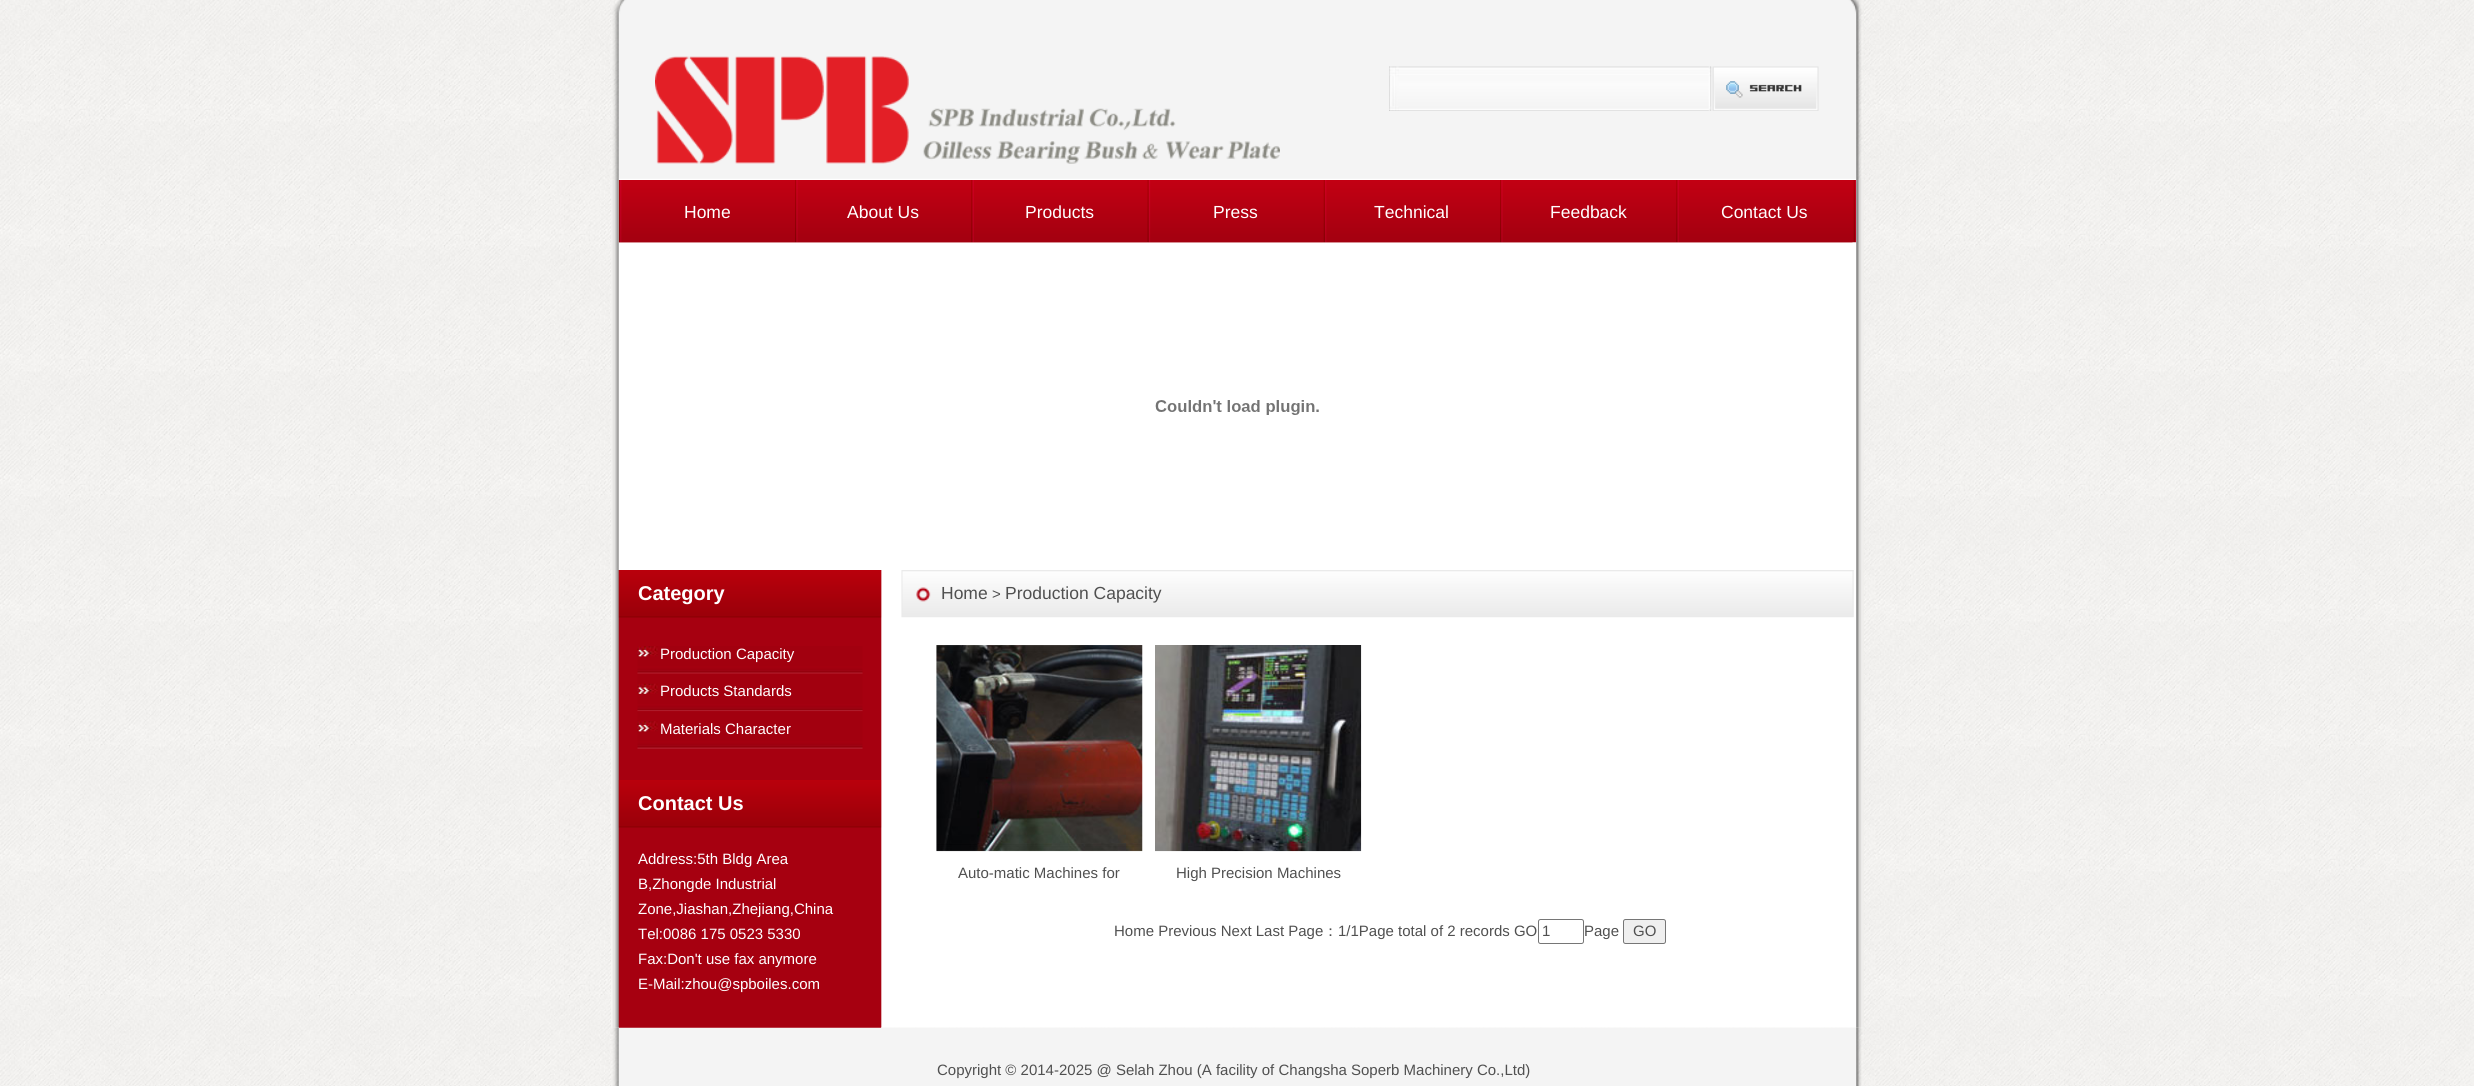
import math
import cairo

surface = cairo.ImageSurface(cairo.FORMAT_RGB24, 2474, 1086)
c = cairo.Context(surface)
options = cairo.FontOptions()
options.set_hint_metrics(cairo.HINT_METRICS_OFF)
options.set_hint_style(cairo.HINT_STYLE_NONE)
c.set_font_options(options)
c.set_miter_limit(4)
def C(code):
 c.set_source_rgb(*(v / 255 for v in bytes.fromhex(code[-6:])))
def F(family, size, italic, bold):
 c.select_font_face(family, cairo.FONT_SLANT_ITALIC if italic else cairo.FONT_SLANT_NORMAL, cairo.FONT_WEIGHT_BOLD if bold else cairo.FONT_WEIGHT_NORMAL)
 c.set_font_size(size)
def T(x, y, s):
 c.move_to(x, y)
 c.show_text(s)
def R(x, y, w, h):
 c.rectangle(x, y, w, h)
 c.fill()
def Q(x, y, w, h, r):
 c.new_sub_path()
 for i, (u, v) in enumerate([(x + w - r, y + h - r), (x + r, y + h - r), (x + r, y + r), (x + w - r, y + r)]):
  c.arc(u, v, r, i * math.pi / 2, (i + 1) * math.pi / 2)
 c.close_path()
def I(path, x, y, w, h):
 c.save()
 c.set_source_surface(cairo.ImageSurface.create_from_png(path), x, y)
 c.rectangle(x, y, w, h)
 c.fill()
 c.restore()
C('ffffff')
c.paint()
I('1.png',0,0,2474,1086)
I('2.png',611,0,1253,1028)
I('3.png',611,0,1253,180)
I('4.png',655,56,625,108)
I('5.png',1389,66,323,45)
I('6.png',1712,66,107,45)
I('7.png',618,180,1239,63)
I('8.png',618,180,177,63)
F('Liberation Sans',17.5,0,0)
C('ffffff')
T(684,218,'Home')
I('9.png',795,180,177,63)
T(847,218,'About Us')
I('10.png',971,180,177,63)
T(1025,218,'Products')
I('11.png',1147,180,177,63)
T(1213,218,'Press')
I('12.png',1323,180,177,63)
T(1374,218,'Technical')
I('9.png',1500,180,177,63)
T(1550,218,'Feedback')
I('10.png',1676,180,177,63)
T(1721,218,'Contact Us')
I('13.png',1155,400,164,15)
I('14.png',611,570,1250,458)
I('15.png',618,570,264,48)
F('Liberation Sans',20,0,1)
T(638,600,'Category')
I('16.png',637,646,226,28)
F('Liberation Sans',15,0,0)
T(660,659,'Production Capacity')
I('17.png',637,673,226,39)
T(660,696,'Products Standards')
I('18.png',637,711,226,38)
T(660,734,'Materials Character')
I('15.png',618,780,264,48)
F('Liberation Sans',20,0,1)
T(638,810,'Contact Us')
C('a60010')
R(619,1027,262,1)
F('Liberation Sans',15,0,0)
C('ffffff')
T(638,864,'Address:5th Bldg Area')
T(638,889,'B,Zhongde Industrial')
T(638,914,'Zone,Jiashan,Zhejiang,China')
T(638,939,'Tel:0086 175 0523 5330')
T(638,964,'Fax:Don\'t use fax anymore')
T(638,989,'E-Mail:zhou@spboiles.com')
I('19.png',901,570,953,48)
F('Liberation Sans',17.5,0,0)
C('505050')
T(941,599,'Home')
F('Liberation Sans',15,0,0)
T(992,599,'>')
F('Liberation Sans',17.5,0,0)
T(1005,599,'Production Capacity')
I('20.png',1852,570,2,47)
I('21.png',936,645,207,207)
F('Liberation Sans',15,0,0)
T(958,878,'Auto-matic Machines for')
I('22.png',1155,645,207,207)
T(1176,878,'High Precision Machines')
T(1114,936,'Home Previous Next Last Page')
F('WenQuanYi Zen Hei Medium',15,0,0)
T(1323,936,'：')
F('Liberation Sans',15,0,0)
T(1338,936,'1/1Page total of 2 records GO')
Q(1538.5,919.5,45,24,2)
C('767676')
c.set_line_width(1)
c.stroke()
C('505050')
T(1542,936,'1')
T(1584,936,'Page')
C('efefef')
Q(1623.5,919.5,42,24,2)
c.fill_preserve()
C('767676')
c.stroke()
C('505050')
T(1633,936,'GO')
I('23.png',611,1027,1253,59)
T(937,1075,'Copyright © 2014-2025 @ Selah Zhou (A facility of Changsha Soperb Machinery Co.,Ltd)')
surface.write_to_png('o.png')
